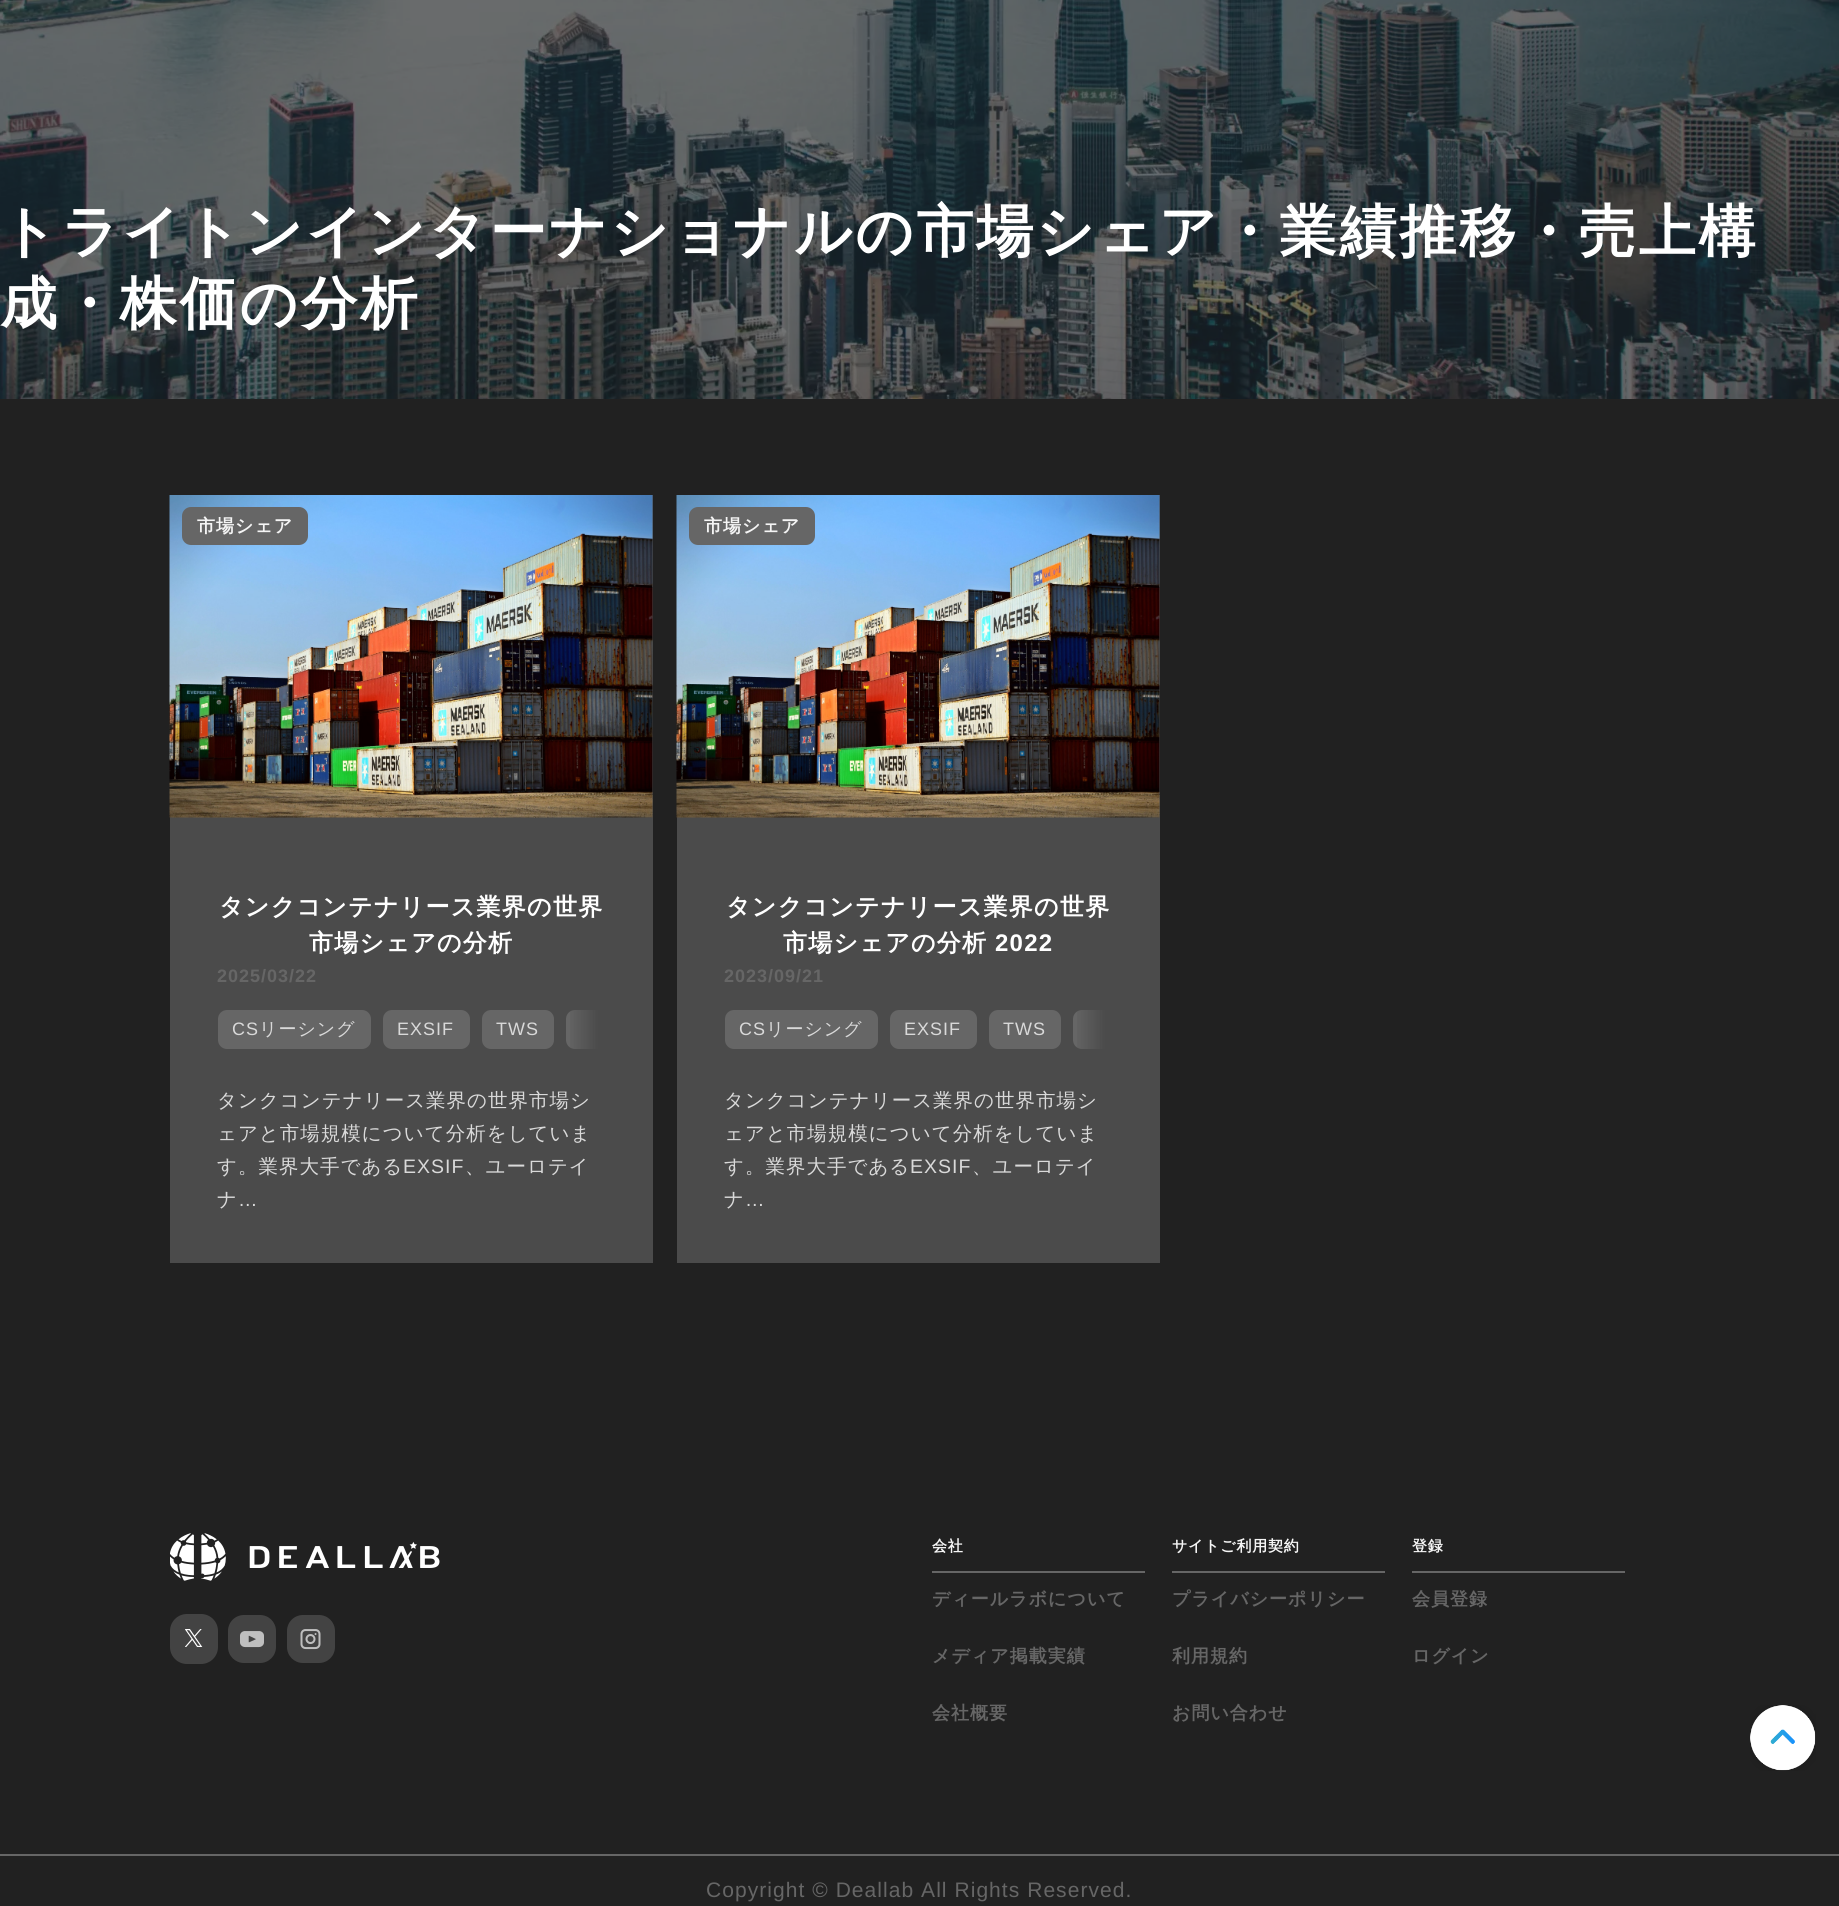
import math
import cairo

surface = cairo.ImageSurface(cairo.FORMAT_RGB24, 1839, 1906)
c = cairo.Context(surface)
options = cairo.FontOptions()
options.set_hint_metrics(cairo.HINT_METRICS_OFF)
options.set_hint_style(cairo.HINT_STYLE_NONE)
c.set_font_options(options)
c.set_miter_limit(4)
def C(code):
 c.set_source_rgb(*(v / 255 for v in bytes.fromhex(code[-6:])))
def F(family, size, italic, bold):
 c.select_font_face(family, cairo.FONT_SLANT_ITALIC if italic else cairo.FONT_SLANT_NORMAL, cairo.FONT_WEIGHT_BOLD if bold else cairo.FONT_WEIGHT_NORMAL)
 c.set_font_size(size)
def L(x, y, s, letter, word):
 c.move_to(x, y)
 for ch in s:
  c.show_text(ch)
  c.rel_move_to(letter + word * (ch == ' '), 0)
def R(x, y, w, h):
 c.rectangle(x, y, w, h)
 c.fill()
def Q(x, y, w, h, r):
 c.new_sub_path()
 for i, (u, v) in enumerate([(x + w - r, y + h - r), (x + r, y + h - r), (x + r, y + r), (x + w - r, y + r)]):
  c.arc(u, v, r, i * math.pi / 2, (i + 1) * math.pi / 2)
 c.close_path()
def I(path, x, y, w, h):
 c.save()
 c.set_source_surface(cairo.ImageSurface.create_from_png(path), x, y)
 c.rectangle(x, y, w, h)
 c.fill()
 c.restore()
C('212121')
c.paint()
I('1.png',0,0,1839,399)
F('WenQuanYi Zen Hei',57,0,1)
C('ffffff')
L(0,251,'トライトンインターナショナルの市場シェア・業績推移・売上構',2.85,0)
L(0,323,'成・株価の分析',2.85,0)
C('4b4b4b')
R(170,495,483,768)
I('2.png',169,495,484,323)
C('666666')
Q(182,507,126,38,9)
c.fill()
F('WenQuanYi Zen Hei',18,0,1)
C('f5f5f5')
L(197,532,'市場シェア',1,0)
F('WenQuanYi Zen Hei',24,0,1)
C('ffffff')
L(219,915,'タンクコンテナリース業界の世界',1.25,0)
L(309,951,'市場シェアの分析',1.25,0)
F('Liberation Sans',18,0,1)
C('666666')
L(217,982,'2025/03/22',1,0)
Q(218,1010,153,39,9)
c.fill()
F('Liberation Sans',18,0,0)
C('d9d9d9')
L(232,1035,'CS',1,0)
F('WenQuanYi Zen Hei Medium',18,0,0)
L(259,1035,'リーシング',1,0)
C('666666')
Q(383,1010,87,39,9)
c.fill()
F('Liberation Sans',18,0,0)
C('d9d9d9')
L(397,1035,'EXSIF',1,0)
C('666666')
Q(482,1010,72,39,9)
c.fill()
C('d9d9d9')
L(496,1035,'TWS',1,0)
C('666666')
c.new_path()
c.move_to(575,1010)
c.line_to(605,1010)
c.line_to(605,1049)
c.line_to(575,1049)
c.curve_to(570,1049,566,1045,566,1040)
c.line_to(566,1019)
c.curve_to(566,1014,570,1010,575,1010)
c.close_path()
c.fill()
gradient = cairo.LinearGradient(604,1029,562,1029)
gradient.add_color_stop_rgba(.14,0.294,0.294,0.294,1)
gradient.add_color_stop_rgba(.91,0.294,0.294,0.294,0)
c.set_source(gradient)
R(570,1010,35,39)
F('WenQuanYi Zen Hei Medium',19.5,0,0)
C('d9d9d9')
L(217,1107,'タンクコンテナリース業界の世界市場シ',1,0)
L(217,1140,'ェアと市場規模について分析をしていま',1,0)
L(217,1173,'す。業界大手である',1,0)
F('Liberation Sans',19.5,0,0)
L(403,1173,'EXSIF',1,0)
F('WenQuanYi Zen Hei Medium',19.5,0,0)
L(465,1173,'、ユーロテイ',1,0)
L(217,1206,'ナ',1,0)
F('Liberation Sans',19.5,0,0)
L(238,1206,'…',1,0)
C('4b4b4b')
R(677,495,483,768)
I('3.png',676,495,484,323)
C('666666')
Q(689,507,126,38,9)
c.fill()
F('WenQuanYi Zen Hei',18,0,1)
C('f5f5f5')
L(704,532,'市場シェア',1,0)
F('WenQuanYi Zen Hei',24,0,1)
C('ffffff')
L(726,915,'タンクコンテナリース業界の世界',1.25,0)
L(783,951,'市場シェアの分析',1.25,0)
F('Liberation Sans',24,0,1)
L(995,951,'2022',1.25,0)
F('Liberation Sans',18,0,1)
C('666666')
L(724,982,'2023/09/21',1,0)
Q(725,1010,153,39,9)
c.fill()
F('Liberation Sans',18,0,0)
C('d9d9d9')
L(739,1035,'CS',1,0)
F('WenQuanYi Zen Hei Medium',18,0,0)
L(766,1035,'リーシング',1,0)
C('666666')
Q(890,1010,87,39,9)
c.fill()
F('Liberation Sans',18,0,0)
C('d9d9d9')
L(904,1035,'EXSIF',1,0)
C('666666')
Q(989,1010,72,39,9)
c.fill()
C('d9d9d9')
L(1003,1035,'TWS',1,0)
C('666666')
c.new_path()
c.move_to(1082,1010)
c.line_to(1112,1010)
c.line_to(1112,1049)
c.line_to(1082,1049)
c.curve_to(1077,1049,1073,1045,1073,1040)
c.line_to(1073,1019)
c.curve_to(1073,1014,1077,1010,1082,1010)
c.close_path()
c.fill()
gradient = cairo.LinearGradient(1111,1029,1069,1029)
gradient.add_color_stop_rgba(.14,0.294,0.294,0.294,1)
gradient.add_color_stop_rgba(.91,0.294,0.294,0.294,0)
c.set_source(gradient)
R(1077,1010,35,39)
F('WenQuanYi Zen Hei Medium',19.5,0,0)
C('d9d9d9')
L(724,1107,'タンクコンテナリース業界の世界市場シ',1,0)
L(724,1140,'ェアと市場規模について分析をしていま',1,0)
L(724,1173,'す。業界大手である',1,0)
F('Liberation Sans',19.5,0,0)
L(910,1173,'EXSIF',1,0)
F('WenQuanYi Zen Hei Medium',19.5,0,0)
L(972,1173,'、ユーロテイ',1,0)
L(724,1206,'ナ',1,0)
F('Liberation Sans',19.5,0,0)
L(745,1206,'…',1,0)
I('4.png',170,1533,270,48)
C('434343')
Q(170,1614,48,50,17)
c.fill()
I('5.png',185,1629,18,18)
I('6.png',228,1615,48,48)
I('7.png',287,1615,48,48)
F('WenQuanYi Zen Hei',15,0,1)
C('f5f5f5')
L(932,1551,'会社',.75,0)
C('666666')
R(932,1571,213,2)
F('WenQuanYi Zen Hei',18,0,1)
L(932,1605,'ディールラボについて',1,0)
L(932,1662,'メディア掲載実績',1,0)
L(932,1719,'会社概要',1,0)
F('WenQuanYi Zen Hei',15,0,1)
C('f5f5f5')
L(1172,1551,'サイトご利用契約',.75,0)
C('666666')
R(1172,1571,213,2)
F('WenQuanYi Zen Hei',18,0,1)
L(1172,1605,'プライバシーポリシー',1,0)
L(1172,1662,'利用規約',1,0)
L(1172,1719,'お問い合わせ',1,0)
F('WenQuanYi Zen Hei',15,0,1)
C('f5f5f5')
L(1412,1551,'登録',.75,0)
C('666666')
R(1412,1571,213,2)
F('WenQuanYi Zen Hei',18,0,1)
L(1412,1605,'会員登録',1,0)
L(1412,1662,'ログイン',1,0)
R(0,1854,1839,2)
F('Liberation Sans',21,0,0)
L(706,1897,'Copyright © Deallab All Rights Reserved.',1.05,0)
I('8.png',1750,1705,66,66)
surface.write_to_png('o.png')
